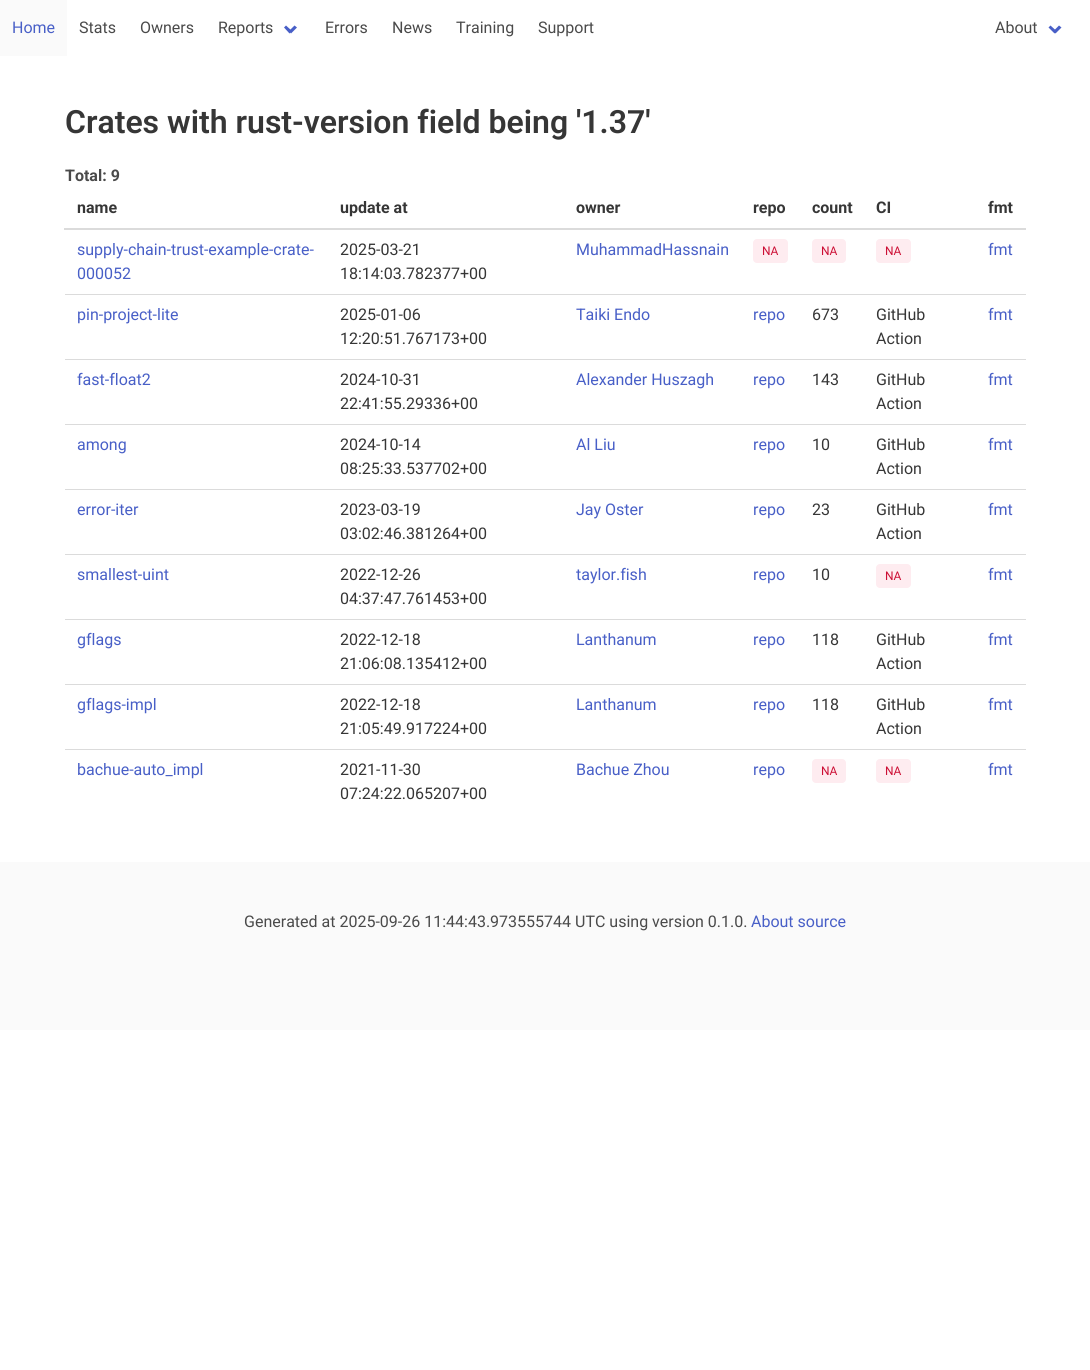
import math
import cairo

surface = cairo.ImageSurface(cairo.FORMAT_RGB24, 1090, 1370)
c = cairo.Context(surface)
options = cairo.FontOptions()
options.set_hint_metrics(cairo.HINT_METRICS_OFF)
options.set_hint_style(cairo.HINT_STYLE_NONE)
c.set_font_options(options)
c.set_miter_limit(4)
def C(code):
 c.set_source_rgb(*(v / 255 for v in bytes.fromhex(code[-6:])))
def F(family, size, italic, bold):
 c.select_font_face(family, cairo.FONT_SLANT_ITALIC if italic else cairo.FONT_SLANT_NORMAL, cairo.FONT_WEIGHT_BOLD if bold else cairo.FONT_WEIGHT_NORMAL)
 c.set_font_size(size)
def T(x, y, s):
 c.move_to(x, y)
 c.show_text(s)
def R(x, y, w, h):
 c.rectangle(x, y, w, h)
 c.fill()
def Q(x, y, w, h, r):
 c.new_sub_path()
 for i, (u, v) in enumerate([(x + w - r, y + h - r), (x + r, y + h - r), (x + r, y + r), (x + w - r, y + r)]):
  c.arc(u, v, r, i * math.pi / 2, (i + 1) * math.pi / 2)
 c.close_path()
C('ffffff')
c.paint()
C('fafafa')
R(0,0,67,56)
F('Roboto',16,0,0)
C('485fc7')
T(12,33,'Home')
C('4a4a4a')
T(79,33,'Stats')
T(140,33,'Owners')
T(218,33,'Reports')
C('485fc7')
c.new_path()
c.move_to(289,31)
c.line_to(294.5,25.5)
c.line_to(297,27.5)
c.line_to(291,33.5)
c.close_path()
c.fill()
c.new_path()
c.move_to(284,27.5)
c.line_to(286,25.5)
c.line_to(292,31)
c.line_to(289.5,33.5)
c.close_path()
c.fill()
C('4a4a4a')
T(325,33,'Errors')
T(392,33,'News')
T(456,33,'Training')
T(538,33,'Support')
T(995,33,'About')
C('485fc7')
c.new_path()
c.move_to(1053.5,31)
c.line_to(1059,25.5)
c.line_to(1061.5,27.5)
c.line_to(1055.5,33.5)
c.close_path()
c.fill()
c.new_path()
c.move_to(1048.5,27.5)
c.line_to(1050.5,25.5)
c.line_to(1056.5,31)
c.line_to(1054.5,33.5)
c.close_path()
c.fill()
F('Roboto SemiBold',32,0,0)
C('363636')
T(65,133,'Crates with rust-version field being \'1.37\'')
F('Roboto',16,0,1)
C('4a4a4a')
T(65,181,'Total: 9')
C('363636')
T(77,213,'name')
T(340,213,'update at')
T(576,213,'owner')
T(753,213,'repo')
T(812,213,'count')
T(876,213,'CI')
C('dbdbdb')
R(64,228,962,2)
C('363636')
T(988,213,'fmt')
F('Roboto',16,0,0)
C('485fc7')
T(77,255,'supply-chain-trust-example-crate-')
T(77,279,'000052')
C('363636')
T(340,255,'2025-03-21')
T(340,279,'18:14:03.782377+00')
C('485fc7')
T(576,255,'MuhammadHassnain')
C('feecf0')
Q(753,239,35,24,4)
c.fill()
F('Roboto',12,0,0)
C('cc0f35')
T(762,255,'NA')
C('feecf0')
Q(812,239,34,24,4)
c.fill()
C('cc0f35')
T(821,255,'NA')
C('feecf0')
Q(876,239,35,24,4)
c.fill()
C('cc0f35')
T(885,255,'NA')
C('dbdbdb')
R(65,294,961,1)
F('Roboto',16,0,0)
C('485fc7')
T(988,255,'fmt')
T(77,320,'pin-project-lite')
C('363636')
T(340,320,'2025-01-06')
T(340,344,'12:20:51.767173+00')
C('485fc7')
T(576,320,'Taiki Endo')
T(753,320,'repo')
C('363636')
T(812,320,'673')
T(876,320,'GitHub')
T(876,344,'Action')
C('dbdbdb')
R(65,359,961,1)
C('485fc7')
T(988,320,'fmt')
T(77,385,'fast-float2')
C('363636')
T(340,385,'2024-10-31')
T(340,409,'22:41:55.29336+00')
C('485fc7')
T(576,385,'Alexander Huszagh')
T(753,385,'repo')
C('363636')
T(812,385,'143')
T(876,385,'GitHub')
T(876,409,'Action')
C('dbdbdb')
R(65,424,961,1)
C('485fc7')
T(988,385,'fmt')
T(77,450,'among')
C('363636')
T(340,450,'2024-10-14')
T(340,474,'08:25:33.537702+00')
C('485fc7')
T(576,450,'Al Liu')
T(753,450,'repo')
C('363636')
T(812,450,'10')
T(876,450,'GitHub')
T(876,474,'Action')
C('dbdbdb')
R(65,489,961,1)
C('485fc7')
T(988,450,'fmt')
T(77,515,'error-iter')
C('363636')
T(340,515,'2023-03-19')
T(340,539,'03:02:46.381264+00')
C('485fc7')
T(576,515,'Jay Oster')
T(753,515,'repo')
C('363636')
T(812,515,'23')
T(876,515,'GitHub')
T(876,539,'Action')
C('dbdbdb')
R(65,554,961,1)
C('485fc7')
T(988,515,'fmt')
T(77,580,'smallest-uint')
C('363636')
T(340,580,'2022-12-26')
T(340,604,'04:37:47.761453+00')
C('485fc7')
T(576,580,'taylor.fish')
T(753,580,'repo')
C('363636')
T(812,580,'10')
C('feecf0')
Q(876,564,35,24,4)
c.fill()
F('Roboto',12,0,0)
C('cc0f35')
T(885,580,'NA')
C('dbdbdb')
R(65,619,961,1)
F('Roboto',16,0,0)
C('485fc7')
T(988,580,'fmt')
T(77,645,'gflags')
C('363636')
T(340,645,'2022-12-18')
T(340,669,'21:06:08.135412+00')
C('485fc7')
T(576,645,'Lanthanum')
T(753,645,'repo')
C('363636')
T(812,645,'118')
T(876,645,'GitHub')
T(876,669,'Action')
C('dbdbdb')
R(65,684,961,1)
C('485fc7')
T(988,645,'fmt')
T(77,710,'gflags-impl')
C('363636')
T(340,710,'2022-12-18')
T(340,734,'21:05:49.917224+00')
C('485fc7')
T(576,710,'Lanthanum')
T(753,710,'repo')
C('363636')
T(812,710,'118')
T(876,710,'GitHub')
T(876,734,'Action')
C('dbdbdb')
R(65,749,961,1)
C('485fc7')
T(988,710,'fmt')
T(77,775,'bachue-auto_impl')
C('363636')
T(340,775,'2021-11-30')
T(340,799,'07:24:22.065207+00')
C('485fc7')
T(576,775,'Bachue Zhou')
T(753,775,'repo')
C('feecf0')
Q(812,759,34,24,4)
c.fill()
F('Roboto',12,0,0)
C('cc0f35')
T(821,775,'NA')
C('feecf0')
Q(876,759,35,24,4)
c.fill()
C('cc0f35')
T(885,775,'NA')
F('Roboto',16,0,0)
C('485fc7')
T(988,775,'fmt')
C('fafafa')
R(0,862,1090,168)
C('4a4a4a')
T(244,927,'Generated at 2025-09-26 11:44:43.973555744 UTC using version 0.1.0.')
C('485fc7')
T(751,927,'About source')
surface.write_to_png('o.png')
